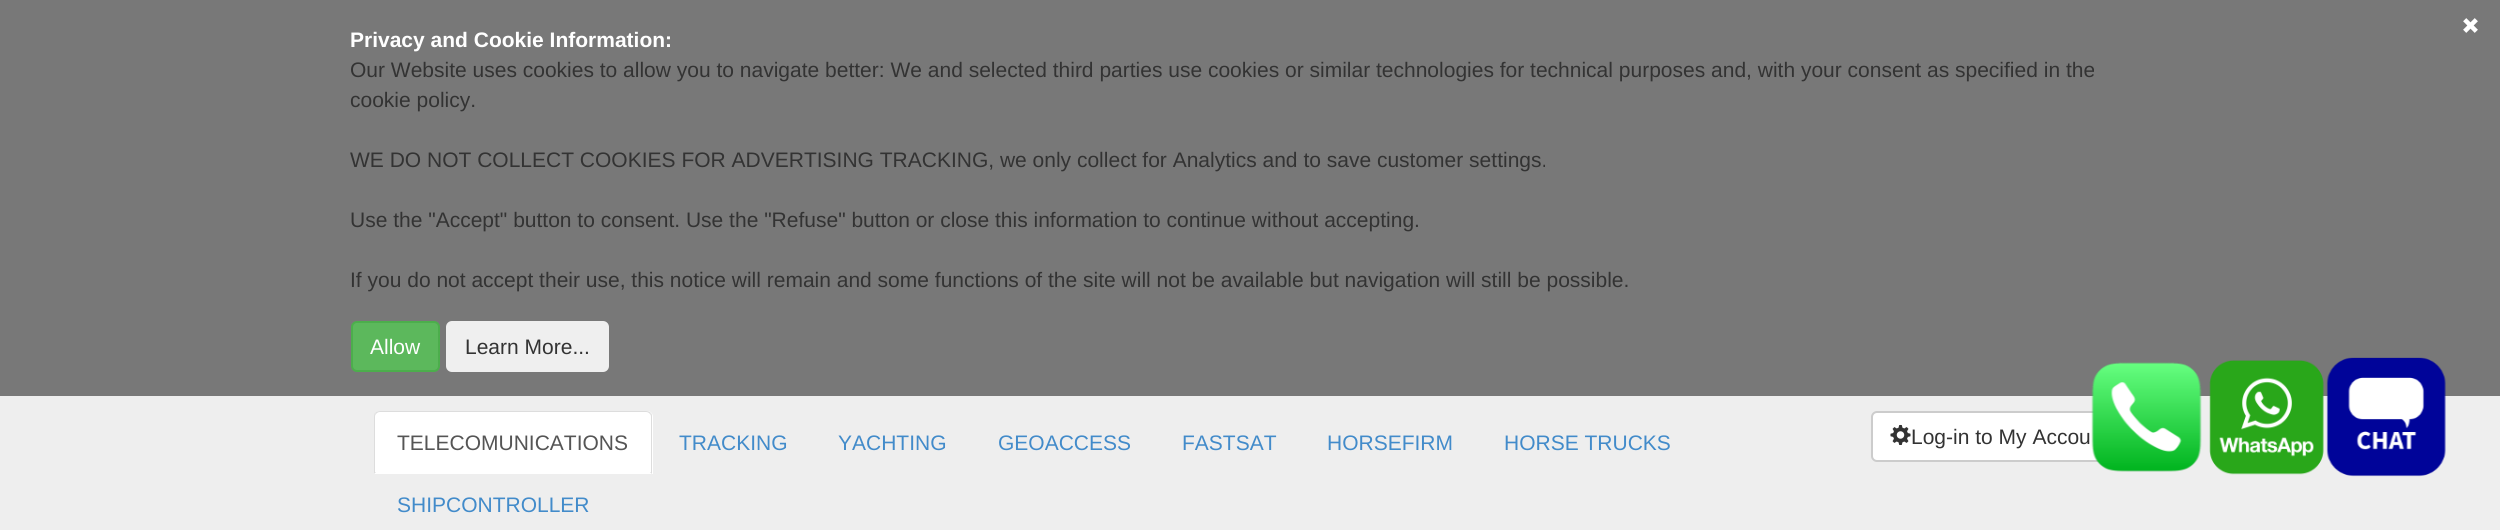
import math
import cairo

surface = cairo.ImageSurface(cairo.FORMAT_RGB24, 2500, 530)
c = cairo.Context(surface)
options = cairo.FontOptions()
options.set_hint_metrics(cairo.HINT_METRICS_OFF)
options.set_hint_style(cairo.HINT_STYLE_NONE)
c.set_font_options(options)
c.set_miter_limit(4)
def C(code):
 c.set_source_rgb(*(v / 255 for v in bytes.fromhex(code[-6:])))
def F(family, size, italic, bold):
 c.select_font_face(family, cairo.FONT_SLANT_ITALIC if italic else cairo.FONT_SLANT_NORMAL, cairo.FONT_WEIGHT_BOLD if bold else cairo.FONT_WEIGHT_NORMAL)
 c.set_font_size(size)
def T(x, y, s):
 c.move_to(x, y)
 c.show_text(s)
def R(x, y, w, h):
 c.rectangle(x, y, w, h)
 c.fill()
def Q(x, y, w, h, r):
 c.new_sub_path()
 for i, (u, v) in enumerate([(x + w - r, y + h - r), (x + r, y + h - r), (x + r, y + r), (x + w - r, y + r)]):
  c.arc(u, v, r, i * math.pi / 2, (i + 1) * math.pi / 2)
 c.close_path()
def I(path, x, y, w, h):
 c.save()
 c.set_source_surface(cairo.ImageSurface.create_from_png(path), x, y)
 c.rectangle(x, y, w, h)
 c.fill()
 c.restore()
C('eeeeee')
c.paint()
C('787878')
R(0,0,2500,396)
I('1.png',2463,18,15,15)
F('Liberation Sans',21,0,1)
C('ffffff')
T(350,47,'Privacy and Cookie Information:')
F('Liberation Sans',21,0,0)
C('333333')
T(350,77,'Our Website uses cookies to allow you to navigate better: We and selected third parties use cookies or similar technologies for technical purposes and, with your consent as specified in the')
T(350,107,'cookie policy.')
T(350,167,'WE DO NOT COLLECT COOKIES FOR ADVERTISING TRACKING, we only collect for Analytics and to save customer settings.')
T(350,227,'Use the "Accept" button to consent. Use the "Refuse" button or close this information to continue without accepting.')
T(350,287,'If you do not accept their use, this notice will remain and some functions of the site will not be available but navigation will still be possible.')
C('5cb85c')
Q(352,322,87,49,5)
c.fill_preserve()
C('4cae4c')
c.stroke()
C('ffffff')
T(370,354,'Allow')
C('efefef')
Q(446,321,163,51,6)
c.fill()
C('333333')
T(465,354,'Learn More...')
C('ffffff')
c.new_path()
c.move_to(380,411)
c.line_to(647,411)
c.curve_to(650.5,411,653,413.5,653,417)
c.line_to(653,474)
c.line_to(374,474)
c.line_to(374,417)
c.curve_to(374,413.5,376.5,411,380,411)
c.close_path()
c.fill()
C('dddddd')
c.new_path()
c.move_to(380,411)
c.curve_to(378,411,376,412,375,413)
c.line_to(376,414)
c.curve_to(377,413,378,412,380,412)
c.line_to(646,412)
c.curve_to(648,412,649,413,650,414)
c.line_to(651,413)
c.curve_to(650,412,648,411,646,411)
c.close_path()
c.fill()
c.new_path()
c.move_to(651,413)
c.curve_to(652,414,652,416,652,417)
c.line_to(652,474)
c.line_to(650,472)
c.line_to(651,472)
c.line_to(651,417)
c.curve_to(651,416,651,415,650,414)
c.close_path()
c.fill()
c.new_path()
c.move_to(375,413)
c.curve_to(374,414,374,416,374,417)
c.line_to(374,474)
c.line_to(376,472)
c.line_to(375,472)
c.line_to(375,417)
c.curve_to(375,416,375,415,376,414)
c.close_path()
c.fill()
C('555555')
T(397,450,'TELECOMUNICATIONS')
C('428bca')
T(679,450,'TRACKING')
T(838,450,'YACHTING')
T(998,450,'GEOACCESS')
T(1182,450,'FASTSAT')
T(1327,450,'HORSEFIRM')
T(1504,450,'HORSE TRUCKS')
T(397,512,'SHIPCONTROLLER')
C('ffffff')
Q(1872,412,256,49,5)
c.fill_preserve()
C('cccccc')
c.stroke()
I('2.png',1890,424,21,21)
C('333333')
T(1911,444,'Log-in to My Accou')
I('3.png',2091,362,111,110)
I('4.png',2209,360,115,115)
I('5.png',2326,357,120,120)
surface.write_to_png('o.png')
